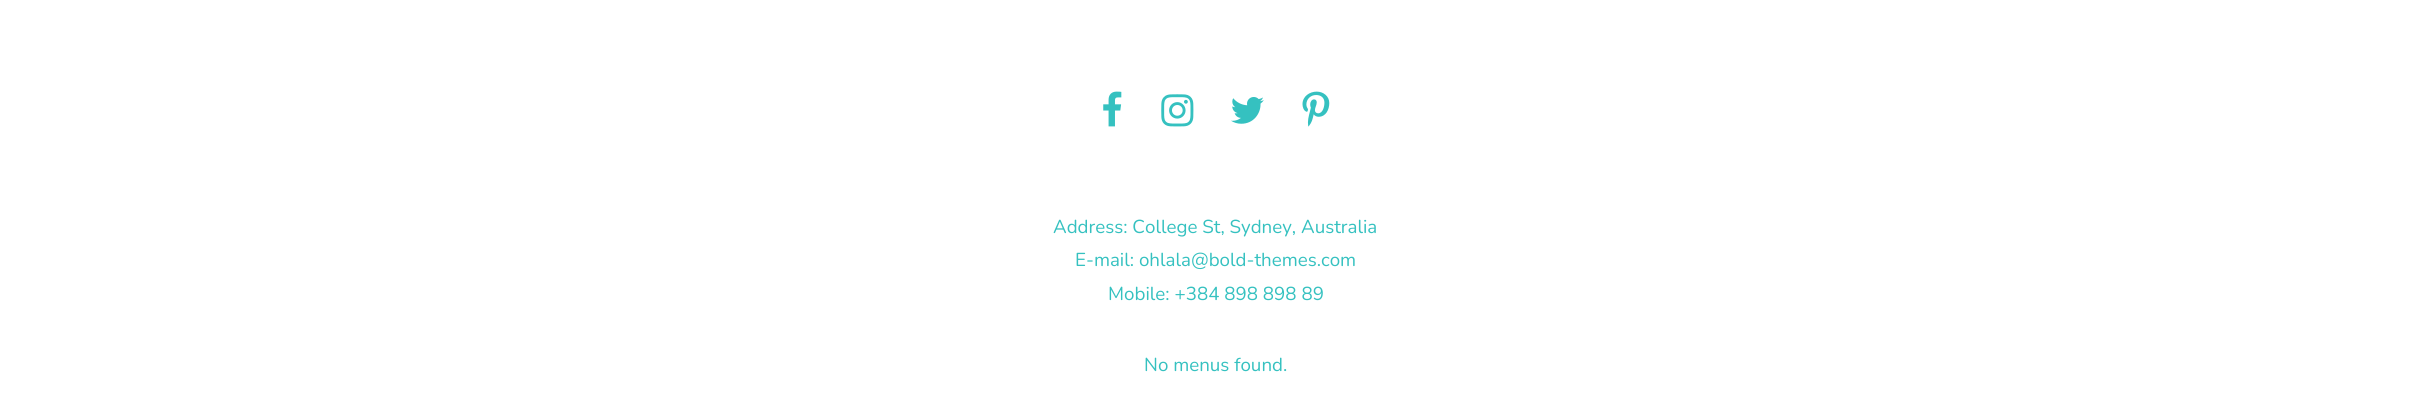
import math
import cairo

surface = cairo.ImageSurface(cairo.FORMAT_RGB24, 2431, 418)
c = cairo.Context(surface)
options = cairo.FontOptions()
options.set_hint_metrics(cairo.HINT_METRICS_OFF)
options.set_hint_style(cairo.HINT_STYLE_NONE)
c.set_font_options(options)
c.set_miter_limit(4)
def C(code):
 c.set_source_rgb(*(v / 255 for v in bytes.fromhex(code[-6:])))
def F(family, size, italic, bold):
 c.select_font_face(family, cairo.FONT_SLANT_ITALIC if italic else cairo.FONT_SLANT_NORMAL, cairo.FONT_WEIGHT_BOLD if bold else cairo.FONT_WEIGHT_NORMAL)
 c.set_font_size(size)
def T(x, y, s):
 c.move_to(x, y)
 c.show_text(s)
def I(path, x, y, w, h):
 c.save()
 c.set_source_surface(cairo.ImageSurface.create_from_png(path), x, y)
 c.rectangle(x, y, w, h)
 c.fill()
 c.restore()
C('ffffff')
c.paint()
I('1.png',1103,91,19,36)
I('2.png',1161,94,33,33)
I('3.png',1231,97,33,27)
I('4.png',1302,91,28,36)
F('Nunito',18.75,0,0)
C('35c1c0')
T(1053,233,'Address: College St, Sydney, Australia')
T(1075,266,'E-mail: ohlala@bold-themes.com')
T(1108,300,'Mobile: +384 898 898 89')
T(1144,371,'No menus found.')
surface.write_to_png('o.png')
